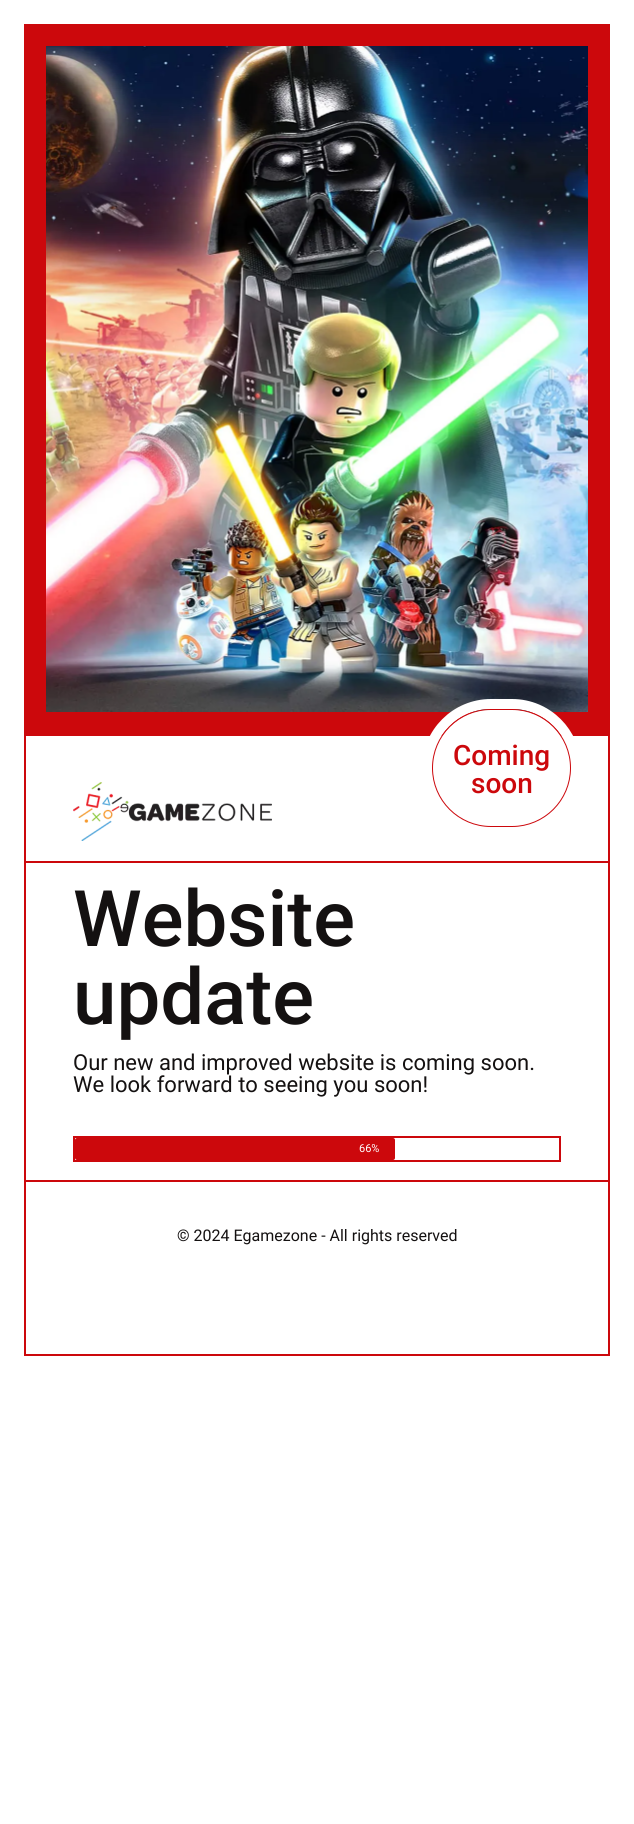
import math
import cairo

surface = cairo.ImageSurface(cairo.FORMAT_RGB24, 634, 1824)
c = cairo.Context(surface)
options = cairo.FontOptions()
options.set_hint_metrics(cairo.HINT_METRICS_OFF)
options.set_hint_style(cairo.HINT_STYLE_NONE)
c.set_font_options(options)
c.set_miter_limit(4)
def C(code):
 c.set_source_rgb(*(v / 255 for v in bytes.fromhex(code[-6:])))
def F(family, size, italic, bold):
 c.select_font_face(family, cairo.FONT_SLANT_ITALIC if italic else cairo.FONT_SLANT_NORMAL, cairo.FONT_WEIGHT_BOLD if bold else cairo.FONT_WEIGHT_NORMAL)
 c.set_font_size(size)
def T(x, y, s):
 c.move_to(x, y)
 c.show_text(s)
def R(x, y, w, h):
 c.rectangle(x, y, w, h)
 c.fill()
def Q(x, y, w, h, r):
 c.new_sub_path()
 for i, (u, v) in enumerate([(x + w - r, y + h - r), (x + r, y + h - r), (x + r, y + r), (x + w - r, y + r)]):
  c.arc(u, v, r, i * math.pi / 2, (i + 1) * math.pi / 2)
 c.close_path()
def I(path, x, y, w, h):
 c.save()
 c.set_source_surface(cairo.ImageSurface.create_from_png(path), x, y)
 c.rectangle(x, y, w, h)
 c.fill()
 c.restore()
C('ffffff')
c.paint()
I('1.png',46,46,542,666)
c.rectangle(35,35,564,688)
C('cc080c')
c.set_line_width(22)
c.stroke()
c.rectangle(25,735,584,620)
c.set_line_width(2)
c.stroke()
R(26,861,582,2)
Q(427,704,149,128,64)
C('ffffff')
c.set_line_width(10)
c.stroke()
Q(432.5,709.5,138,117,58.5)
c.fill_preserve()
C('cc080c')
c.set_line_width(1)
c.stroke()
F('Roboto Medium',28,0,0)
T(453,765,'Coming')
T(471,793,'soon')
I('2.png',73,782,199,59)
R(26,1180,582,2)
F('Roboto Medium',78,0,0)
C('141111')
T(73,946,'Website')
T(73,1024,'update')
F('Roboto',22,0,0)
T(73,1070,'Our new and improved website is coming soon.')
T(73,1092,'We look forward to seeing you soon!')
c.rectangle(74,1137,486,24)
C('cc080c')
c.set_line_width(2)
c.stroke()
Q(75,1138,320,22,2)
c.fill()
F('Roboto',11,0,0)
C('ffffff')
T(359,1152,'66%')
F('Roboto',16,0,0)
C('141111')
T(177,1241,'© 2024 Egamezone - All rights reserved')
surface.write_to_png('o.png')
